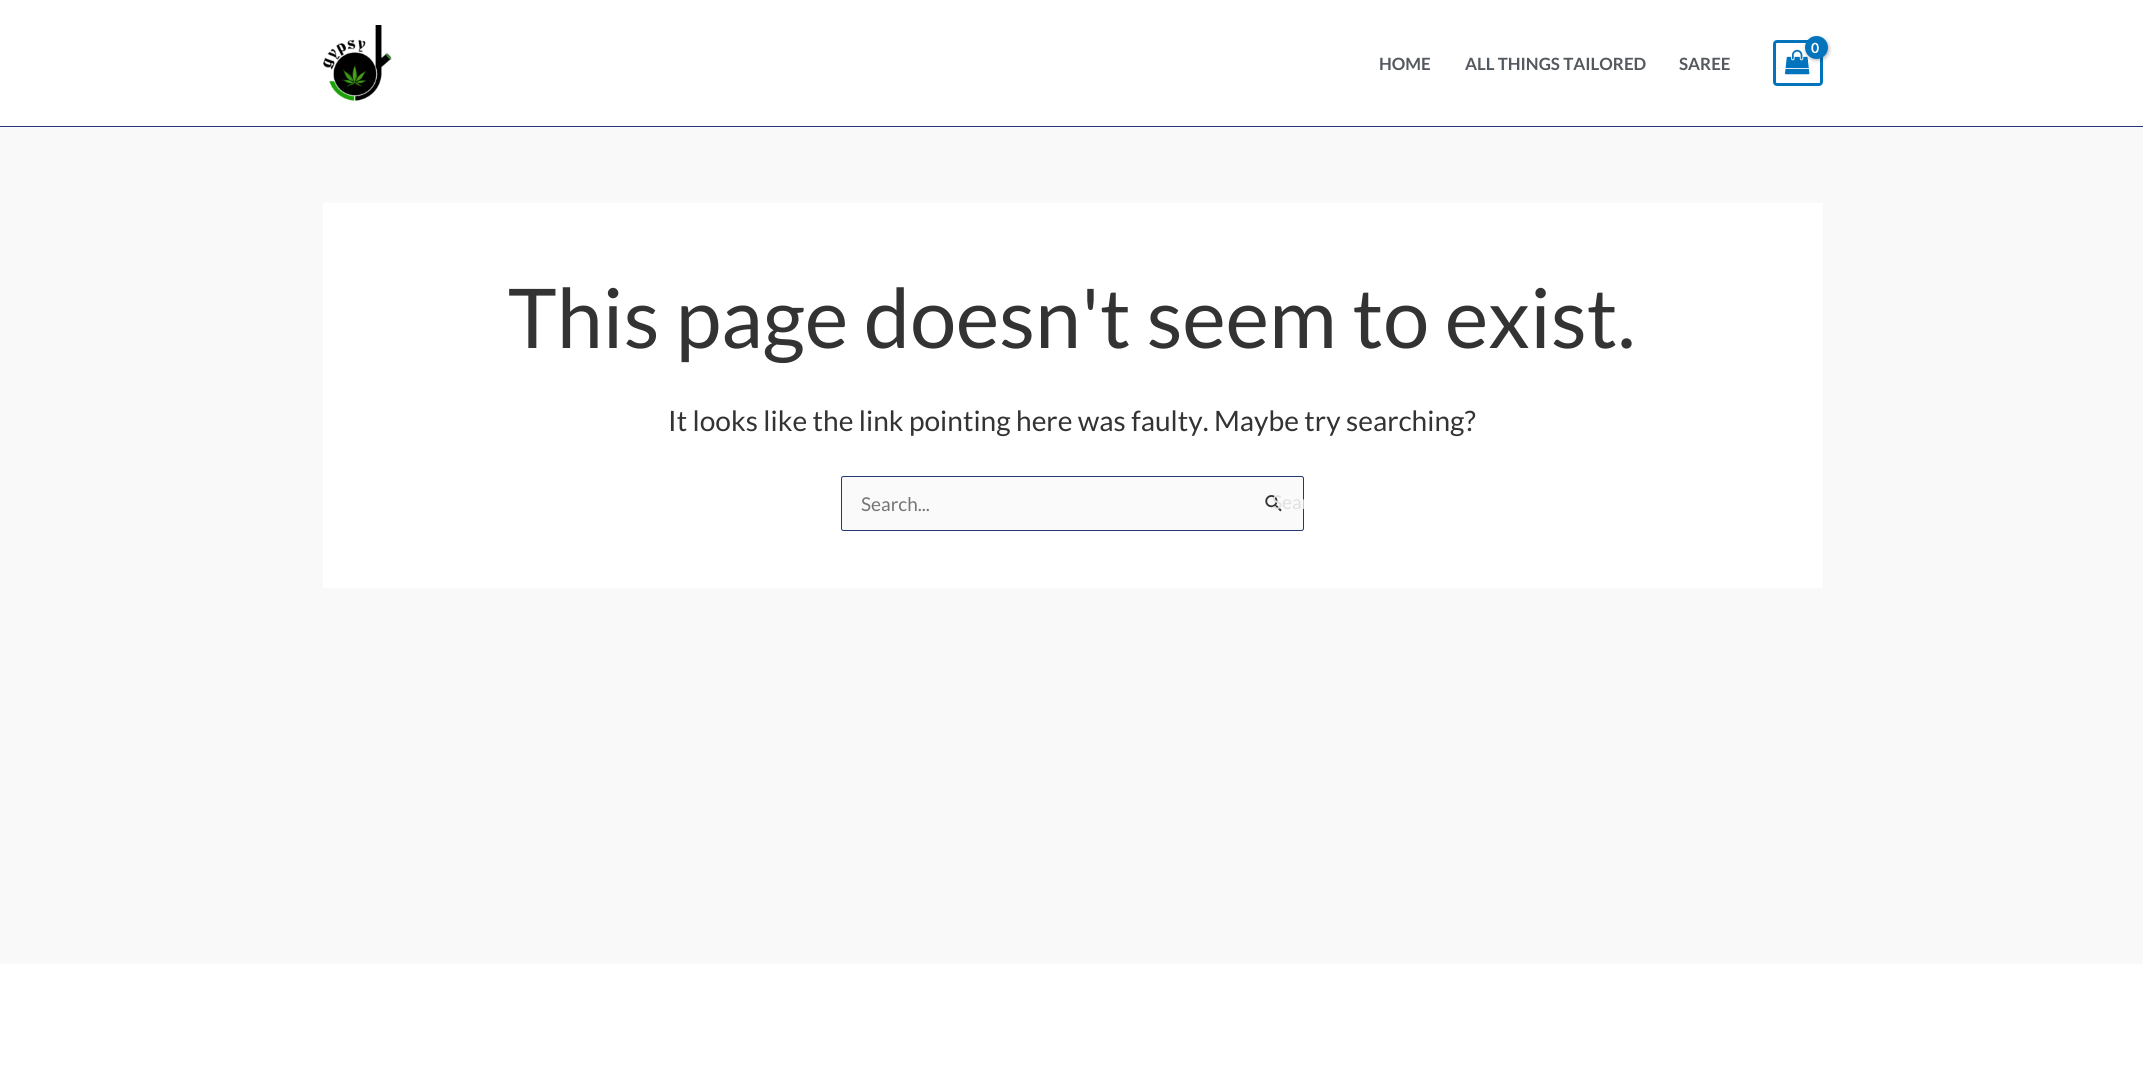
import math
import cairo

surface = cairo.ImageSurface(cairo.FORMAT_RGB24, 2143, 1088)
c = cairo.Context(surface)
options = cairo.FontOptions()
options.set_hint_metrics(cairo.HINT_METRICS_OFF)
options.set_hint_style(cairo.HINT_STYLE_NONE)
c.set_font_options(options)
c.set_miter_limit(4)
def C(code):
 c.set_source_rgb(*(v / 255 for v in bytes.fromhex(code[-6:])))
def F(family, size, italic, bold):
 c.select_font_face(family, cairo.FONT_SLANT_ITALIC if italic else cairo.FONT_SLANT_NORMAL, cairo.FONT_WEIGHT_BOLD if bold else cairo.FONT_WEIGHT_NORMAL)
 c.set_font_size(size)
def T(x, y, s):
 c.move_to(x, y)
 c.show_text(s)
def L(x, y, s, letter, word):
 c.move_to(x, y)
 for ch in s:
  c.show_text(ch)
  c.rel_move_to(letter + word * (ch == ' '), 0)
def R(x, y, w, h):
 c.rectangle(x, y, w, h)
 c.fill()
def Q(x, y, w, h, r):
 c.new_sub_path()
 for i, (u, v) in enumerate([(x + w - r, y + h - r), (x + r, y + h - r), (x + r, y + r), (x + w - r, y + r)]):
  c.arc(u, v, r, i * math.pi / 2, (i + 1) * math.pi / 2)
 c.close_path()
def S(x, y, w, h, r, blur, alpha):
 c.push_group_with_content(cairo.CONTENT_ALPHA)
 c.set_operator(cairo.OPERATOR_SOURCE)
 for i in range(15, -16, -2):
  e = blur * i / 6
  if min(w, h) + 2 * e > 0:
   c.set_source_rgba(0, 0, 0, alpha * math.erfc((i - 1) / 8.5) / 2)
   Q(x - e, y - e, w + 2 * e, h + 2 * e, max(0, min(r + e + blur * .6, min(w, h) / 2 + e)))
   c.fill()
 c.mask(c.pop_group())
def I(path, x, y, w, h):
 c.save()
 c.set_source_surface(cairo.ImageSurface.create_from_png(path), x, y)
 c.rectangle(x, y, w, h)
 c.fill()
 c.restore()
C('f9f9f9')
c.paint()
C('ffffff')
R(0,0,2143,128)
C('243673')
R(0,126,2143,1)
I('1.png',323,25,69,76)
Q(1774.5,41.5,47,43,2.5)
C('0274be')
c.set_line_width(3)
c.stroke()
I('2.png',1785,49,25,26)
C('000000')
S(1806,38,23,22,11,2,.3)
C('0274be')
c.arc(1816.5,47.5,11.5,0,2 * math.pi)
c.fill()
F('Lato',14,0,1)
C('ffffff')
L(1811,53,'0',-1,0)
F('Lato',16.9,0,1)
C('54595f')
T(1379,70,'HOME')
T(1465,70,'ALL THINGS TAILORED')
T(1679,70,'SAREE')
C('ffffff')
R(323,203,1500,385)
F('Lato',82.5,0,0)
C('333333')
T(508,348,'This page doesn\'t seem to exist.')
F('Lato',28.1,0,0)
T(668,431,'It looks like the link pointing here was faulty. Maybe try searching?')
C('fafafa')
Q(841.5,476.5,462,54,2)
c.fill_preserve()
C('243673')
c.set_line_width(1)
c.stroke()
I('3.png',1265,495,17,17)
F('Lato',19,0,0)
C('757575')
T(861,511,'Search...')
c.save()
Q(1248,476,56,52,2.5)
c.clip()
C('dfe0e3')
T(1272,509,'Sear')
c.restore()
C('ffffff')
R(0,964,2143,124)
surface.write_to_png('o.png')
